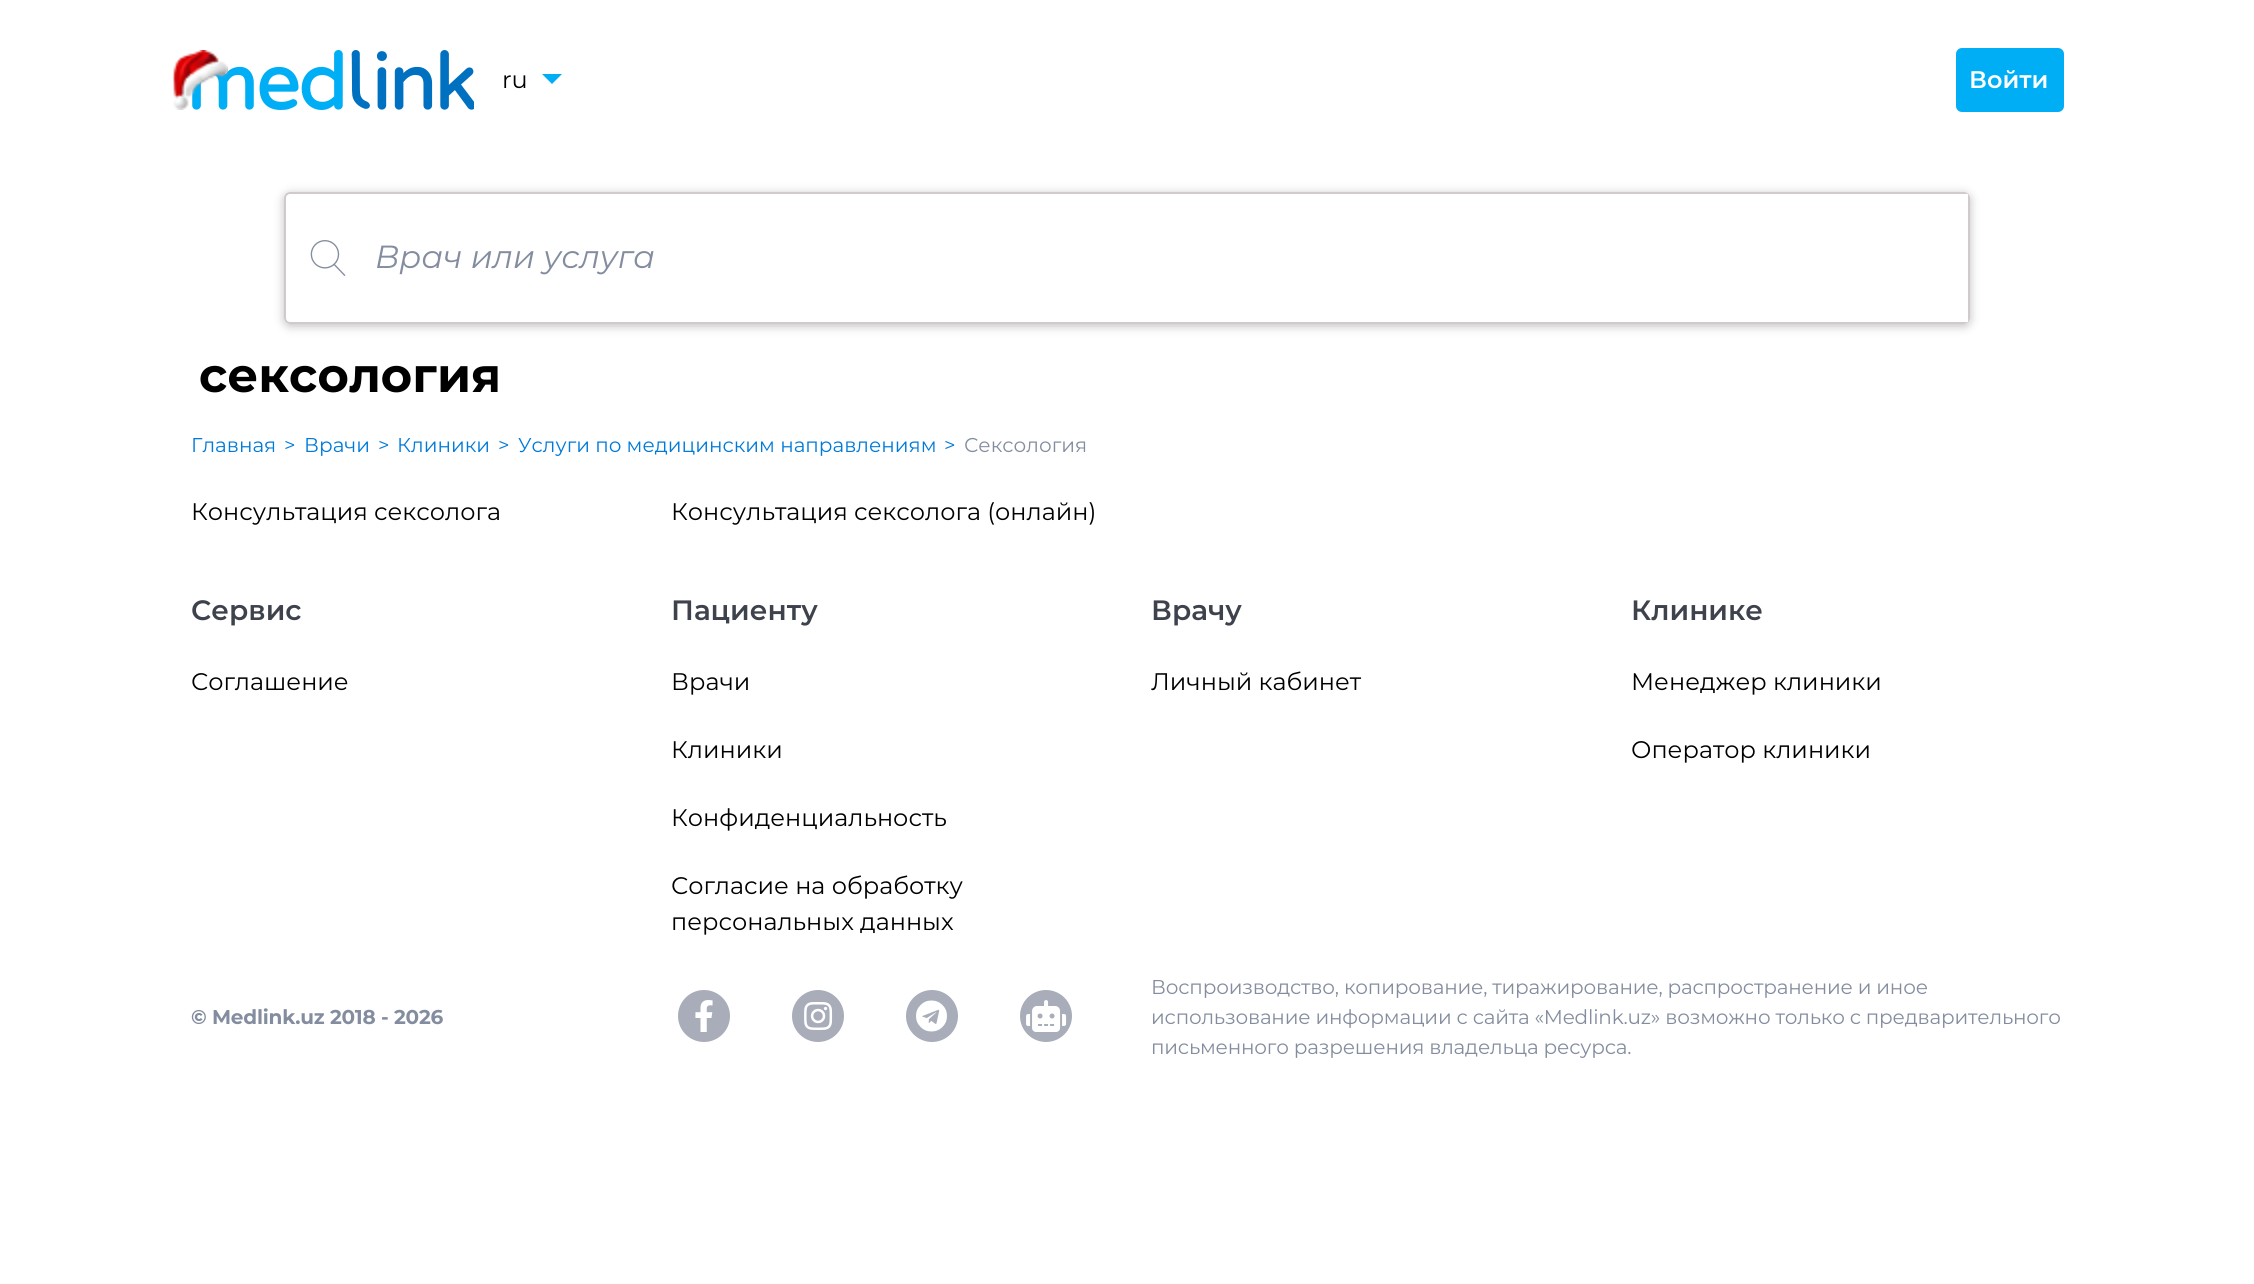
import math
import cairo

surface = cairo.ImageSurface(cairo.FORMAT_RGB24, 2254, 1284)
c = cairo.Context(surface)
options = cairo.FontOptions()
options.set_hint_metrics(cairo.HINT_METRICS_OFF)
options.set_hint_style(cairo.HINT_STYLE_NONE)
c.set_font_options(options)
c.set_miter_limit(4)
def C(code):
 c.set_source_rgb(*(v / 255 for v in bytes.fromhex(code[-6:])))
def F(family, size, italic, bold):
 c.select_font_face(family, cairo.FONT_SLANT_ITALIC if italic else cairo.FONT_SLANT_NORMAL, cairo.FONT_WEIGHT_BOLD if bold else cairo.FONT_WEIGHT_NORMAL)
 c.set_font_size(size)
def T(x, y, s):
 c.move_to(x, y)
 c.show_text(s)
def L(x, y, s, letter, word):
 c.move_to(x, y)
 for ch in s:
  c.show_text(ch)
  c.rel_move_to(letter + word * (ch == ' '), 0)
def R(x, y, w, h):
 c.rectangle(x, y, w, h)
 c.fill()
def Q(x, y, w, h, r):
 c.new_sub_path()
 for i, (u, v) in enumerate([(x + w - r, y + h - r), (x + r, y + h - r), (x + r, y + r), (x + w - r, y + r)]):
  c.arc(u, v, r, i * math.pi / 2, (i + 1) * math.pi / 2)
 c.close_path()
def S(x, y, w, h, r, blur, alpha):
 c.push_group_with_content(cairo.CONTENT_ALPHA)
 c.set_operator(cairo.OPERATOR_SOURCE)
 for i in range(15, -16, -2):
  e = blur * i / 6
  if min(w, h) + 2 * e > 0:
   c.set_source_rgba(0, 0, 0, alpha * math.erfc((i - 1) / 8.5) / 2)
   Q(x - e, y - e, w + 2 * e, h + 2 * e, max(0, min(r + e + blur * .6, min(w, h) / 2 + e)))
   c.fill()
 c.mask(c.pop_group())
def I(path, x, y, w, h):
 c.save()
 c.set_source_surface(cairo.ImageSurface.create_from_png(path), x, y)
 c.rectangle(x, y, w, h)
 c.fill()
 c.restore()
C('ffffff')
c.paint()
I('2.png',192,50,282,60)
I('1.png',172,50,56,60)
F('Montserrat',24,0,0)
C('000000')
T(502,88,'ru')
C('00aef5')
c.new_path()
c.move_to(542,74)
c.line_to(552,84)
c.line_to(562,74)
c.close_path()
c.fill()
Q(1957,49,106,62,5)
c.fill_preserve()
c.stroke()
F('Montserrat SemiBold',24,0,0)
C('ffffff')
T(1969,88,'Войти')
c.save()
c.set_fill_rule(cairo.FILL_RULE_EVEN_ODD)
c.new_path()
c.move_to(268,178)
c.line_to(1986,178)
c.line_to(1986,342)
c.line_to(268,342)
c.close_path()
c.move_to(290,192)
c.line_to(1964,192)
c.curve_to(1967.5,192,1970,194.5,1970,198)
c.line_to(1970,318)
c.curve_to(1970,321.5,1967.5,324,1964,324)
c.line_to(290,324)
c.curve_to(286.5,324,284,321.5,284,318)
c.line_to(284,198)
c.curve_to(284,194.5,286.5,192,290,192)
c.close_path()
c.clip()
C('010101')
S(284,194,1686,132,6,5,.25)
c.restore()
Q(285,193,1684,130,5)
C('d1caca')
c.stroke()
I('3.png',310,240,36,36)
C('ffffff')
R(1964,194,4,128)
F('Montserrat',32,1,0)
C('848d9f')
T(375,268,'Врач или услуга')
F('Montserrat',48,0,1)
C('000000')
T(199,392,'сексология')
F('Montserrat',20,0,0)
C('007ad9')
T(191,452,'Главная')
T(284,452,'>')
T(304,452,'Врачи')
T(378,452,'>')
T(397,452,'Клиники')
T(498,452,'>')
T(518,452,'Услуги по медицинским направлениям')
T(944,452,'>')
C('848d9f')
T(964,452,'Сексология')
F('Montserrat',24,0,0)
C('000000')
T(191,520,'Консультация сексолога')
T(671,520,'Консультация сексолога (онлайн)')
F('Montserrat SemiBold',28,0,0)
C('3e424c')
T(191,620,'Сервис')
F('Montserrat',24,0,0)
C('000000')
T(191,690,'Соглашение')
F('Montserrat SemiBold',28,0,0)
C('3e424c')
T(671,620,'Пациенту')
F('Montserrat',24,0,0)
C('000000')
T(671,690,'Врачи')
T(671,758,'Клиники')
T(671,826,'Конфиденциальность')
T(671,894,'Согласие на обработку')
T(671,930,'персональных данных')
F('Montserrat SemiBold',28,0,0)
C('3e424c')
T(1151,620,'Врачу')
F('Montserrat',24,0,0)
C('000000')
T(1151,690,'Личный кабинет')
F('Montserrat SemiBold',28,0,0)
C('3e424c')
T(1631,620,'Клинике')
F('Montserrat',24,0,0)
C('000000')
T(1631,690,'Менеджер клиники')
T(1631,758,'Оператор клиники')
F('Montserrat',20,0,1)
C('848d9f')
L(191,1024,'© Medlink.uz 2018 - 2026',-.2,0)
C('a9adb9')
c.new_path()
c.arc(704,1016,26,0,2 * math.pi)
c.fill()
I('4.png',695,1000,18,32)
c.arc(818,1016,26,0,2 * math.pi)
c.fill()
I('5.png',804,1002,29,28)
c.arc(932,1016,26,0,2 * math.pi)
c.fill()
I('6.png',916,1000,31,32)
c.arc(1046,1016,26,0,2 * math.pi)
c.fill()
I('7.png',1026,1000,41,32)
F('Montserrat',20,0,0)
C('848d9f')
L(1151,994,'Воспроизводство, копирование, тиражирование, распространение и иное',-.2,0)
L(1151,1024,'использование информации с сайта «Medlink.uz» возможно только с предварительного',-.2,0)
L(1151,1054,'письменного разрешения владельца ресурса.',-.2,0)
surface.write_to_png('o.png')
